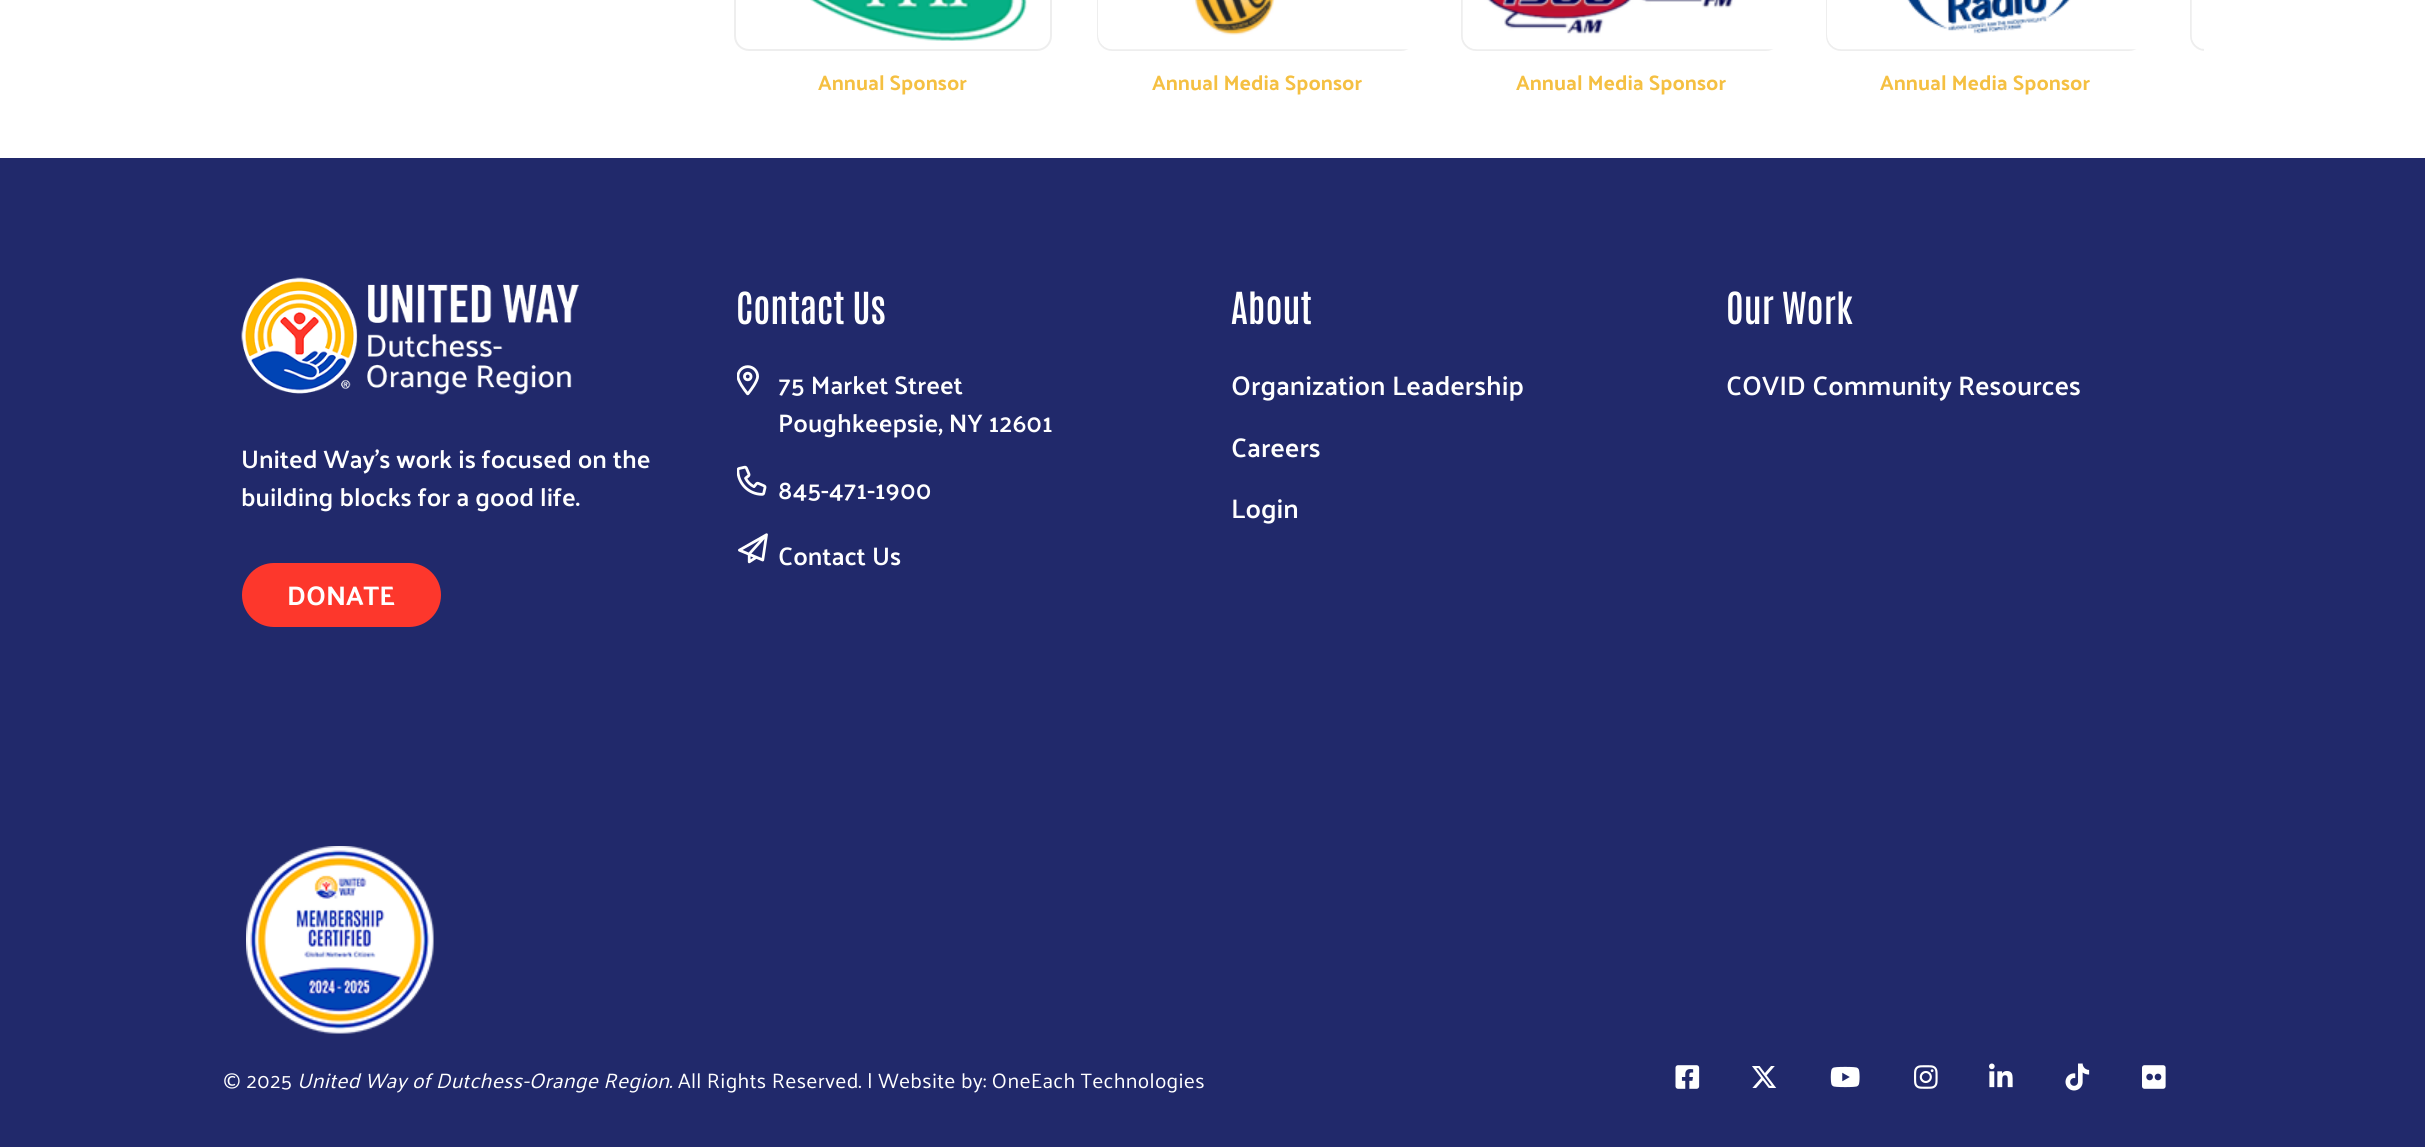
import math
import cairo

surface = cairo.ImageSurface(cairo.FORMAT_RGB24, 2425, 1147)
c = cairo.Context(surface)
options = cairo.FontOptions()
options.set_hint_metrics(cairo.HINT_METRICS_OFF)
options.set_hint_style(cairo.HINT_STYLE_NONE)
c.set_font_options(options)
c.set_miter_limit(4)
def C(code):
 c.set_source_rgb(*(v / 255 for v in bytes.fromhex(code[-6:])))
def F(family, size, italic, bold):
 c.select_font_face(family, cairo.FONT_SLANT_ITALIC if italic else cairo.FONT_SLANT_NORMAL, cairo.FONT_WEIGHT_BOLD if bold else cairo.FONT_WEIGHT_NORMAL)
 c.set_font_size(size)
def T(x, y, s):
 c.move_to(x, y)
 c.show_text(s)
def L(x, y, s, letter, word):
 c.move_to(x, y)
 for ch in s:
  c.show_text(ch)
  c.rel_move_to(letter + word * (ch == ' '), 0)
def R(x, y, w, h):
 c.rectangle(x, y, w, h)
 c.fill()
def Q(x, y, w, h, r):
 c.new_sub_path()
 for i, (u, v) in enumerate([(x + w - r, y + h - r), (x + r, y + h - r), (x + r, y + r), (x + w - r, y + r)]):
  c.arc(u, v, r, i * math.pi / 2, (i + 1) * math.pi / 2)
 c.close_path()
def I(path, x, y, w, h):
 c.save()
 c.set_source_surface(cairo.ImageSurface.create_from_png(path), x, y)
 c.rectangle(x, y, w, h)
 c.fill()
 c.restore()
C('ffffff')
c.paint()
c.save()
c.rectangle(224,0,1980,98)
c.clip()
Q(2191,-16,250,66,14)
C('eeeeee')
c.stroke()
c.restore()
I('1.png',2191,0,11,49)
Q(735,-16,316,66,14)
C('eeeeee')
c.stroke()
I('2.png',810,0,217,41)
F('Palanquin',21,0,1)
C('f5c042')
T(818,90,'Annual Sponsor')
Q(1098,-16,317,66,14)
C('eeeeee')
c.stroke()
I('3.png',1098,0,318,50)
C('f5c042')
T(1152,90,'Annual Media Sponsor')
Q(1462,-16,318,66,14)
C('eeeeee')
c.stroke()
I('4.png',1462,0,319,50)
C('f5c042')
T(1516,90,'Annual Media Sponsor')
Q(1827,-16,316,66,14)
C('eeeeee')
c.stroke()
I('5.png',1827,0,317,50)
C('f5c042')
T(1880,90,'Annual Media Sponsor')
C('21296b')
R(0,158,2425,989)
F('Antonio SemiBold',37.5,0,0)
C('ffffff')
T(736,324,'Contact Us')
I('6.png',737,365,22,31)
F('Palanquin SemiBold',25.5,0,0)
T(778,394,'75 Market Street')
T(778,432,'Poughkeepsie, NY 12601')
I('7.png',737,465,30,31)
T(778,499,'845-471-1900')
I('8.png',738,533,30,31)
T(778,565,'Contact Us')
F('Antonio SemiBold',37.5,0,0)
T(1231,324,'About')
F('Palanquin SemiBold',27,0,0)
T(1231,395,'Organization Leadership')
T(1231,457,'Careers')
T(1231,518,'Login')
F('Antonio SemiBold',37.5,0,0)
T(1726,324,'Our Work')
F('Palanquin SemiBold',27,0,0)
T(1726,395,'COVID Community Resources')
I('9.png',241,277,338,118)
F('Palanquin SemiBold',25.5,0,0)
T(241,468,'United Way’s work is focused on the')
T(241,506,'building blocks for a good life.')
C('fd372c')
Q(243,564,197,62,31)
c.fill_preserve()
c.stroke()
F('Palanquin',27,0,1)
C('ffffff')
T(287,605,'DONATE')
I('10.png',246,846,188,188)
F('Palanquin',21,0,0)
L(223,1088,'© 2025',.3,0)
F('Palanquin',21,1,0)
L(297,1088,'United Way of Dutchess-Orange Region.',.3,0)
F('Palanquin',21,0,0)
L(678,1088,'All Rights Reserved. | Website by: OneEach Technologies',.3,0)
I('11.png',1675,1065,25,24)
I('12.png',1752,1066,25,22)
I('13.png',1830,1066,30,22)
I('14.png',1914,1065,24,24)
I('15.png',1989,1063,24,25)
I('16.png',2065,1063,25,28)
I('17.png',2142,1065,24,24)
surface.write_to_png('o.png')
